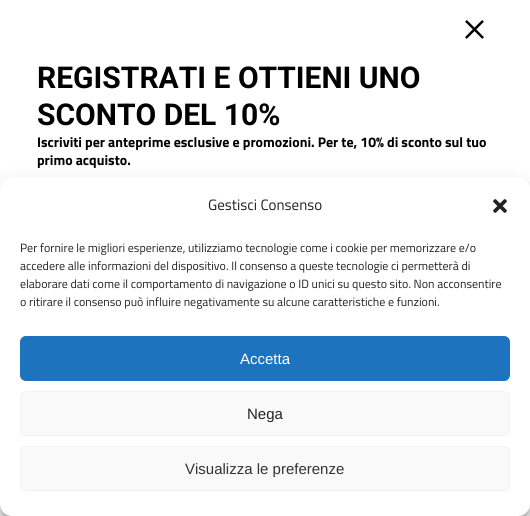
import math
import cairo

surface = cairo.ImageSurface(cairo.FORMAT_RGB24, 530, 516)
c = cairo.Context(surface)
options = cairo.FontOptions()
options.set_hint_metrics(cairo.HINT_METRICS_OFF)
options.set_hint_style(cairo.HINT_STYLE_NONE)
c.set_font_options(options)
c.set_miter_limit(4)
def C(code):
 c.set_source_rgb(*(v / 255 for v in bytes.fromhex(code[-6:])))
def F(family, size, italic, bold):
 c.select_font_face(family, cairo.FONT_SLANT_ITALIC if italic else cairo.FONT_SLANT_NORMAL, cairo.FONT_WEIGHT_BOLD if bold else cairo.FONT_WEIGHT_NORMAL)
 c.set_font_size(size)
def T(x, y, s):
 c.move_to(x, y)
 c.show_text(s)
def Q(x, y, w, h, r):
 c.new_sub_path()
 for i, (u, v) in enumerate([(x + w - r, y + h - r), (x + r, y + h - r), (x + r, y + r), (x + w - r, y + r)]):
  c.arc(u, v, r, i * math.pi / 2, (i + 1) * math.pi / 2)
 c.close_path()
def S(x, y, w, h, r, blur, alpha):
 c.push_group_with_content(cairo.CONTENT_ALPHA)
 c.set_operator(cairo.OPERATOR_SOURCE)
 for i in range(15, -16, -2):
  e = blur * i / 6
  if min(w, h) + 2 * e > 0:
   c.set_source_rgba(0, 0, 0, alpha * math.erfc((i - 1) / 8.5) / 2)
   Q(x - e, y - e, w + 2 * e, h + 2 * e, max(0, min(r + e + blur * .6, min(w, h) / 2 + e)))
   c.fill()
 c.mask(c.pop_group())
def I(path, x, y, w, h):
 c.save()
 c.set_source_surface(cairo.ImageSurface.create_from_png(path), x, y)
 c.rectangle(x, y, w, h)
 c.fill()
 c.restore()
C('ffffff')
c.paint()
I('1.png',465,20,19,19)
F('Roboto',30,0,1)
C('000000')
T(37,88,'REGISTRATI E OTTIENI UNO')
T(37,125,'SCONTO DEL 10%')
F('Titillium Web',14,0,1)
T(37,147,'Iscriviti per anteprime esclusive e promozioni. Per te, 10% di sconto sul tuo')
T(37,165,'primo acquisto.')
C('000000')
S(0,183,530,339,12,3,.23)
S(0,187,530,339,12,10,.19)
C('ffffff')
Q(0,177,530,339,12)
c.fill()
F('Titillium Web',15,0,0)
C('222222')
T(208,210,'Gestisci Consenso')
I('2.png',493,199,14,14)
F('Titillium Web',12,0,0)
T(20,252,'Per fornire le migliori esperienze, utilizziamo tecnologie come i cookie per memorizzare e/o')
T(20,270,'accedere alle informazioni del dispositivo. Il consenso a queste tecnologie ci permetterà di')
T(20,288,'elaborare dati come il comportamento di navigazione o ID unici su questo sito. Non acconsentire')
T(20,306,'o ritirare il consenso può influire negativamente su alcune caratteristiche e funzioni.')
C('1e73be')
Q(20.5,336.5,489,44,5.5)
c.fill_preserve()
c.set_line_width(1)
c.stroke()
F('Liberation Sans',15,0,0)
C('ffffff')
T(240,364,'Accetta')
C('f9f9f9')
Q(20.5,391.5,489,44,5.5)
c.fill_preserve()
C('f2f2f2')
c.stroke()
C('222222')
T(247,419,'Nega')
C('f9f9f9')
Q(20.5,446.5,489,44,5.5)
c.fill_preserve()
C('f2f2f2')
c.stroke()
C('333333')
T(185,474,'Visualizza le preferenze')
surface.write_to_png('o.png')
